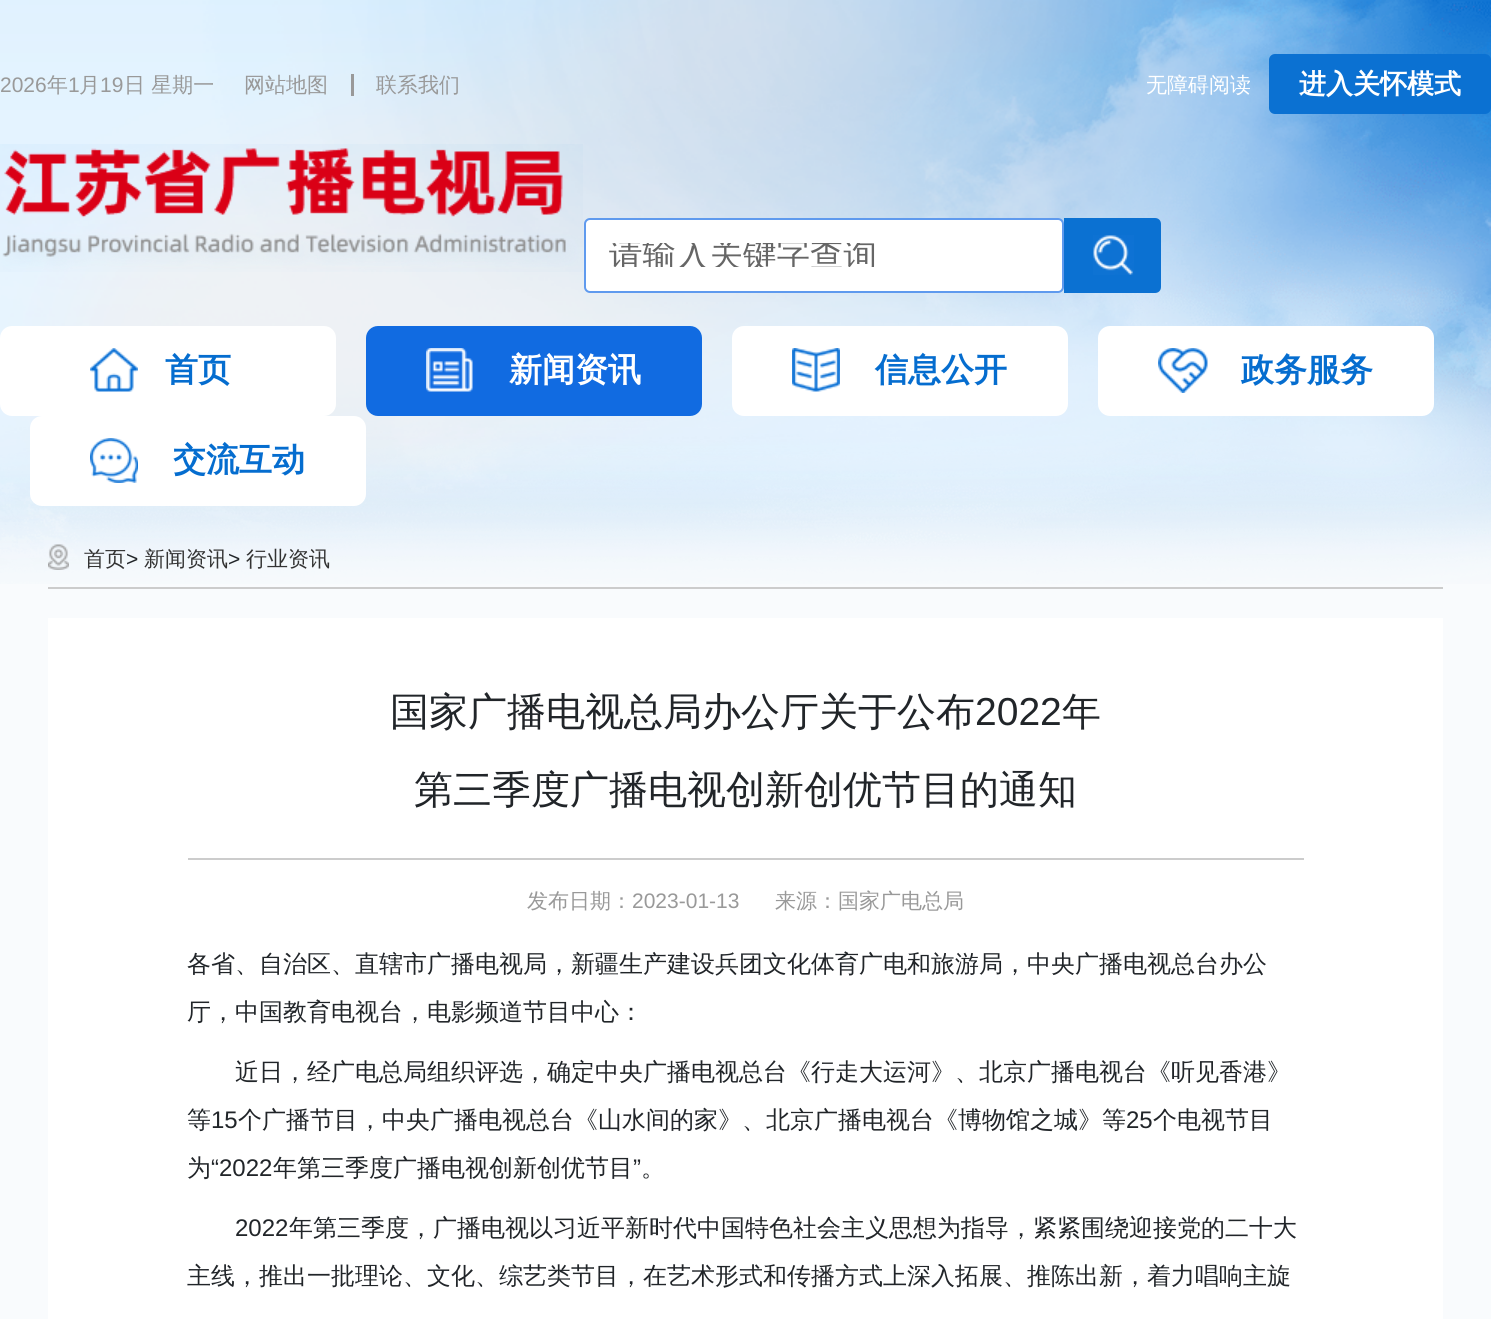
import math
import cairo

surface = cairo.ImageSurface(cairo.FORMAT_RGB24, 1491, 1319)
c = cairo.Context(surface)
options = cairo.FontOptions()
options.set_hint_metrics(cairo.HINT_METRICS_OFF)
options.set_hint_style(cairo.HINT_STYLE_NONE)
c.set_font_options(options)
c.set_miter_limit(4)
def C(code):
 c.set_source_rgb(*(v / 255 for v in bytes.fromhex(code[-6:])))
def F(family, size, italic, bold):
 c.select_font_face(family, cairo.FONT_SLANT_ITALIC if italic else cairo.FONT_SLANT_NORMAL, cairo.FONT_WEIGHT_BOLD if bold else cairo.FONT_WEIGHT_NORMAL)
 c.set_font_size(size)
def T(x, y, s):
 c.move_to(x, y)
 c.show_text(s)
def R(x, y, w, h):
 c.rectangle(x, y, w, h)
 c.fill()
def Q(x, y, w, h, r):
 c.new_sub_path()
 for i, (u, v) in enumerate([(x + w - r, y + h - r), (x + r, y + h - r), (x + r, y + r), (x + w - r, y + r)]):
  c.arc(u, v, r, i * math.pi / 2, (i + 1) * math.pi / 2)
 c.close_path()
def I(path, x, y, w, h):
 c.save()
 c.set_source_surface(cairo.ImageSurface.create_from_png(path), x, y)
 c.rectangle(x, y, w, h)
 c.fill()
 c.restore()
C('f9fbfd')
c.paint()
I('1.png',0,0,1491,584)
F('Liberation Sans',21,0,0)
C('999999')
T(0,92,'2026')
F('WenQuanYi Zen Hei Medium',21,0,0)
T(47,92,'年')
F('Liberation Sans',21,0,0)
T(68,92,'1')
F('WenQuanYi Zen Hei Medium',21,0,0)
T(79,92,'月')
F('Liberation Sans',21,0,0)
T(100,92,'19')
F('WenQuanYi Zen Hei Medium',21,0,0)
T(124,92,'日 星期一')
T(244,92,'网站地图')
R(351,74,3,22)
T(376,92,'联系我们')
C('ffffff')
T(1146,92,'无障碍阅读')
C('0b71d2')
Q(1269,54,222,60,6)
c.fill()
F('WenQuanYi Zen Hei',27,0,1)
C('ffffff')
T(1299,93,'进入关怀模式')
I('2.png',0,144,583,128)
Q(585,219,478,73,5)
c.fill_preserve()
C('5f9aee')
c.stroke()
c.save()
c.new_path()
c.move_to(615,243)
c.line_to(1038,243)
c.line_to(1038,267)
c.line_to(615,267)
c.curve_to(611.5,267,609,264.5,609,261)
c.line_to(609,249)
c.curve_to(609,245.5,611.5,243,615,243)
c.close_path()
c.clip()
F('WenQuanYi Zen Hei Medium',33.5,0,0)
C('666666')
T(609,266,'请输入关键字查询')
c.restore()
C('0b71d2')
c.new_path()
c.move_to(1064,218)
c.line_to(1155,218)
c.curve_to(1158.5,218,1161,220.5,1161,224)
c.line_to(1161,287)
c.curve_to(1161,290.5,1158.5,293,1155,293)
c.line_to(1064,293)
c.close_path()
c.fill()
I('3.png',1093,235,41,40)
C('ffffff')
Q(0,326,336,90,12)
c.fill()
I('4.png',90,348,48,44)
F('WenQuanYi Zen Hei',33,0,1)
C('056dcf')
T(165,381,'首页')
C('116be1')
Q(366,326,336,90,12)
c.fill()
I('5.png',426,348,47,44)
C('ffffff')
T(509,381,'新闻资讯')
Q(732,326,336,90,12)
c.fill()
I('6.png',792,348,48,44)
C('056dcf')
T(875,381,'信息公开')
C('ffffff')
Q(1098,326,336,90,12)
c.fill()
I('7.png',1158,348,50,45)
C('056dcf')
T(1241,381,'政务服务')
C('ffffff')
Q(30,416,336,90,12)
c.fill()
I('8.png',90,438,48,45)
C('056dcf')
T(173,471,'交流互动')
I('9.png',48,544,21,26)
C('cccccc')
R(48,587,1395,2)
F('WenQuanYi Zen Hei Medium',21,0,0)
C('333333')
T(84,566,'首页')
F('Liberation Sans',21,0,0)
C('212529')
T(126,566,'>')
F('WenQuanYi Zen Hei Medium',21,0,0)
C('333333')
T(144,566,'新闻资讯')
F('Liberation Sans',21,0,0)
C('212529')
T(228,566,'>')
F('WenQuanYi Zen Hei Medium',21,0,0)
C('333333')
T(246,566,'行业资讯')
C('ffffff')
R(48,618,1395,701)
C('cccccc')
R(188,858,1116,2)
F('WenQuanYi Zen Hei Medium',39,0,0)
C('212529')
T(390,725,'国家广播电视总局办公厅关于公布')
F('Liberation Sans',39,0,0)
T(975,725,'2022')
F('WenQuanYi Zen Hei Medium',39,0,0)
T(1062,725,'年')
T(414,803,'第三季度广播电视创新创优节目的通知')
F('WenQuanYi Zen Hei Medium',21,0,0)
C('999999')
T(527,908,'发布日期：')
F('Liberation Sans',21,0,0)
T(632,908,'2023-01-13')
F('WenQuanYi Zen Hei Medium',21,0,0)
T(775,908,'来源：国家广电总局')
F('WenQuanYi Zen Hei Medium',24,0,0)
C('212529')
T(187,972,'各省、自治区、直辖市广播电视局，新疆生产建设兵团文化体育广电和旅游局，中央广播电视总台办公')
T(187,1020,'厅，中国教育电视台，电影频道节目中心：')
T(235,1080,'近日，经广电总局组织评选，确定中央广播电视总台《行走大运河》、北京广播电视台《听见香港》')
T(187,1128,'等')
F('Liberation Sans',24,0,0)
T(211,1128,'15')
F('WenQuanYi Zen Hei Medium',24,0,0)
T(238,1128,'个广播节目，中央广播电视总台《山水间的家》、北京广播电视台《博物馆之城》等')
F('Liberation Sans',24,0,0)
T(1126,1128,'25')
F('WenQuanYi Zen Hei Medium',24,0,0)
T(1153,1128,'个电视节目')
T(187,1176,'为')
F('Liberation Sans',24,0,0)
T(211,1176,'“2022')
F('WenQuanYi Zen Hei Medium',24,0,0)
T(273,1176,'年第三季度广播电视创新创优节目')
F('Liberation Sans',24,0,0)
T(633,1176,'”')
F('WenQuanYi Zen Hei Medium',24,0,0)
T(641,1176,'。')
F('Liberation Sans',24,0,0)
T(235,1236,'2022')
F('WenQuanYi Zen Hei Medium',24,0,0)
T(289,1236,'年第三季度，广播电视以习近平新时代中国特色社会主义思想为指导，紧紧围绕迎接党的二十大')
T(187,1284,'主线，推出一批理论、文化、综艺类节目，在艺术形式和传播方式上深入拓展、推陈出新，着力唱响主旋')
surface.write_to_png('o.png')
